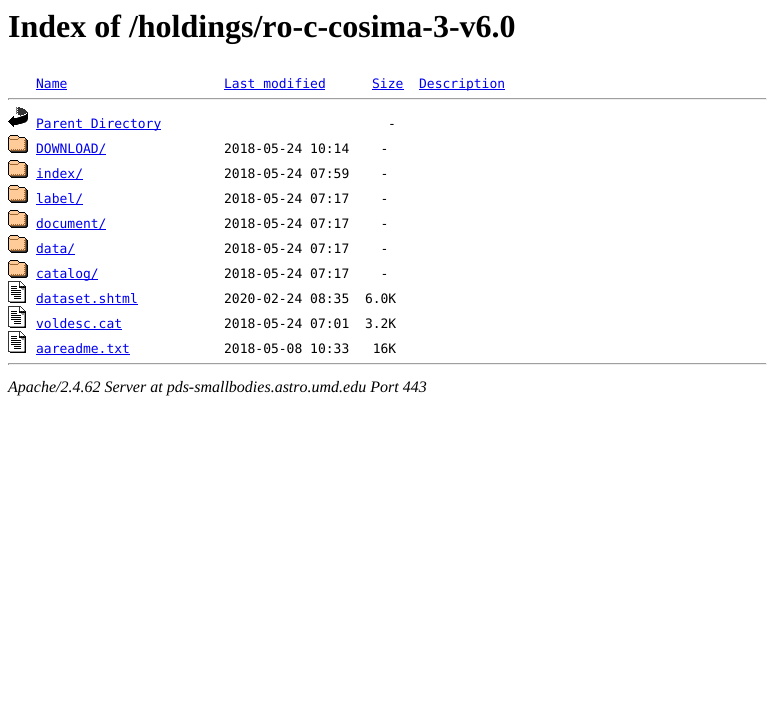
import math
import cairo

surface = cairo.ImageSurface(cairo.FORMAT_RGB24, 775, 703)
c = cairo.Context(surface)
options = cairo.FontOptions()
options.set_hint_metrics(cairo.HINT_METRICS_OFF)
options.set_hint_style(cairo.HINT_STYLE_NONE)
c.set_font_options(options)
c.set_miter_limit(4)
def C(code):
 c.set_source_rgb(*(v / 255 for v in bytes.fromhex(code[-6:])))
def F(family, size, italic, bold):
 c.select_font_face(family, cairo.FONT_SLANT_ITALIC if italic else cairo.FONT_SLANT_NORMAL, cairo.FONT_WEIGHT_BOLD if bold else cairo.FONT_WEIGHT_NORMAL)
 c.set_font_size(size)
def T(x, y, s):
 c.move_to(x, y)
 c.show_text(s)
def R(x, y, w, h):
 c.rectangle(x, y, w, h)
 c.fill()
def I(path, x, y, w, h):
 c.save()
 c.set_source_surface(cairo.ImageSurface.create_from_png(path), x, y)
 c.rectangle(x, y, w, h)
 c.fill()
 c.restore()
C('ffffff')
c.paint()
F('Liberation Serif',32,0,1)
C('000000')
T(8,37,'Index of /holdings/ro-c-cosima-3-v6.0')
F('DejaVu Sans Mono',13,0,0)
C('0000ee')
T(36,88,'Name')
R(36,89,31,1)
T(224,88,'Last modified')
R(224,89,101,1)
T(372,88,'Size')
R(372,89,32,1)
R(419,89,86,1)
T(419,88,'Description')
C('9f9f9f')
R(8,98,759,1)
C('eeeeee')
R(766,98,1,2)
R(8,99,759,1)
C('9f9f9f')
R(8,98,1,2)
I('1.png',8,107,20,20)
C('0000ee')
R(36,129,125,1)
T(36,128,'Parent Directory')
C('000000')
T(388,128,'-')
I('2.png',8,135,20,18)
C('0000ee')
R(36,154,70,1)
T(36,153,'DOWNLOAD/')
C('000000')
T(224,153,'2018-05-24 10:14    -')
I('2.png',8,160,20,18)
C('0000ee')
R(36,179,47,1)
T(36,178,'index/')
C('000000')
T(224,178,'2018-05-24 07:59    -')
I('2.png',8,185,20,18)
C('0000ee')
R(36,204,47,1)
T(36,203,'label/')
C('000000')
T(224,203,'2018-05-24 07:17    -')
I('2.png',8,210,20,18)
C('0000ee')
R(36,229,70,1)
T(36,228,'document/')
C('000000')
T(224,228,'2018-05-24 07:17    -')
I('2.png',8,235,20,18)
C('0000ee')
R(36,254,39,1)
T(36,253,'data/')
C('000000')
T(224,253,'2018-05-24 07:17    -')
I('2.png',8,260,20,18)
C('0000ee')
R(36,279,62,1)
T(36,278,'catalog/')
C('000000')
T(224,278,'2018-05-24 07:17    -')
I('3.png',8,281,18,22)
C('0000ee')
T(36,303,'dataset.shtml')
R(36,304,102,1)
C('000000')
T(224,303,'2020-02-24 08:35  6.0K')
I('3.png',8,306,18,22)
C('0000ee')
T(36,328,'voldesc.cat')
R(36,329,86,1)
C('000000')
T(224,328,'2018-05-24 07:01  3.2K')
I('3.png',8,331,18,22)
C('0000ee')
T(36,353,'aareadme.txt')
R(36,354,94,1)
C('000000')
T(224,353,'2018-05-08 10:33   16K')
C('9f9f9f')
R(8,363,759,1)
C('eeeeee')
R(766,363,1,2)
R(8,364,759,1)
C('9f9f9f')
R(8,363,1,2)
F('Liberation Serif',16,1,0)
C('000000')
T(8,392,'Apache/2.4.62 Server at pds-smallbodies.astro.umd.edu Port 443')
surface.write_to_png('o.png')
